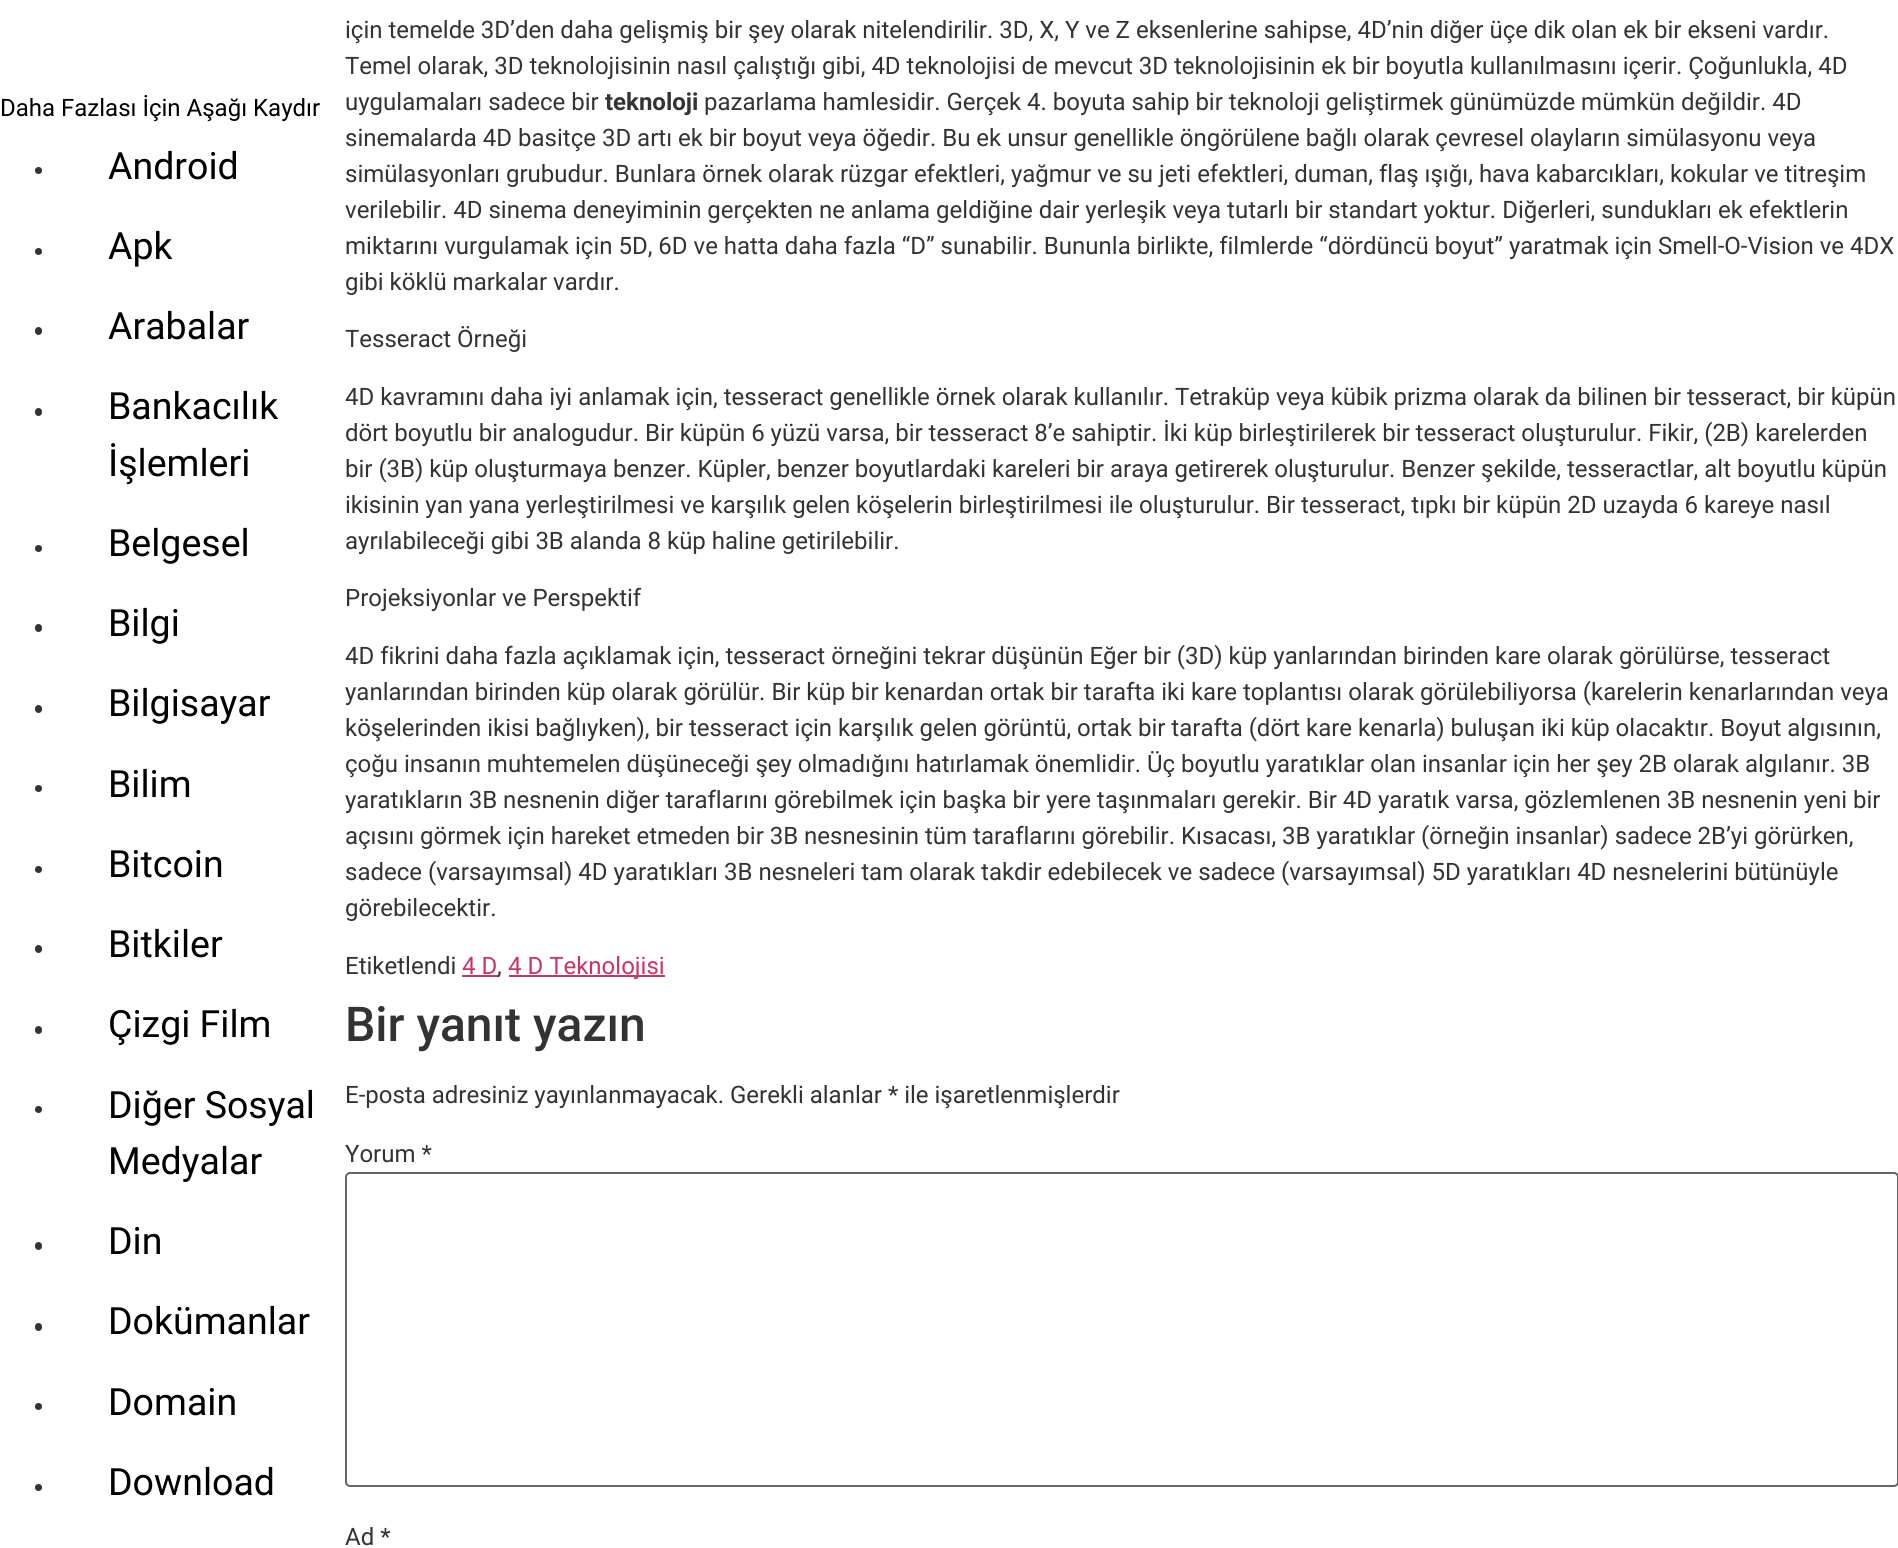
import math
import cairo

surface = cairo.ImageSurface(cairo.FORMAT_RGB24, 1898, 1548)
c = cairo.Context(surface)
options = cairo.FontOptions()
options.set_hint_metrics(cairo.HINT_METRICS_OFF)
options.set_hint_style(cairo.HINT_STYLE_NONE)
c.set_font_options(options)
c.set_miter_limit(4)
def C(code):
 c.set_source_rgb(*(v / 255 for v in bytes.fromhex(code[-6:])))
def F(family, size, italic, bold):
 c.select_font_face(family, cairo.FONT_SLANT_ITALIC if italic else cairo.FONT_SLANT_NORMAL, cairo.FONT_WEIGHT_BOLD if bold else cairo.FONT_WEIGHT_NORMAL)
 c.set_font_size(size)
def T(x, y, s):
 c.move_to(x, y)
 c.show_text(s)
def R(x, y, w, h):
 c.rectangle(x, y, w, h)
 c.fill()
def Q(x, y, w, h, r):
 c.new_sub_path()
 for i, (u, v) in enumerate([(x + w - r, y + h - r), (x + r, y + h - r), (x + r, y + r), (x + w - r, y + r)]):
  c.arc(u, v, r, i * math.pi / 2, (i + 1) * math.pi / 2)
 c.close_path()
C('ffffff')
c.paint()
F('Roboto',24,0,0)
C('000000')
T(0,116,'Daha Fazlası İçin Aşağı Kaydır')
C('333333')
c.new_path()
c.arc(38.5,170.5,3.5,0,2 * math.pi)
c.fill()
F('Roboto',37.5,0,0)
C('000000')
T(108,179,'Android')
C('333333')
c.new_path()
c.arc(38.5,251.5,3.5,0,2 * math.pi)
c.fill()
C('000000')
T(108,259,'Apk')
C('333333')
Q(35,327,7,8,3.5)
c.fill()
C('000000')
T(108,339,'Arabalar')
C('333333')
Q(35,408,7,8,3.5)
c.fill()
C('000000')
T(108,419,'Bankacılık')
T(108,476,'İşlemleri')
C('333333')
c.new_path()
c.arc(38.5,548.5,3.5,0,2 * math.pi)
c.fill()
C('000000')
T(108,556,'Belgesel')
C('333333')
Q(35,624,7,8,3.5)
c.fill()
C('000000')
T(108,636,'Bilgi')
C('333333')
Q(35,705,7,8,3.5)
c.fill()
C('000000')
T(108,716,'Bilgisayar')
C('333333')
c.new_path()
c.arc(38.5,788.5,3.5,0,2 * math.pi)
c.fill()
C('000000')
T(108,797,'Bilim')
C('333333')
c.new_path()
c.arc(38.5,869.5,3.5,0,2 * math.pi)
c.fill()
C('000000')
T(108,877,'Bitcoin')
C('333333')
Q(35,945,7,8,3.5)
c.fill()
C('000000')
T(108,957,'Bitkiler')
C('333333')
Q(35,1026,7,8,3.5)
c.fill()
C('000000')
T(108,1037,'Çizgi Film')
C('333333')
c.new_path()
c.arc(38.5,1109.5,3.5,0,2 * math.pi)
c.fill()
C('000000')
T(108,1118,'Diğer Sosyal')
T(108,1174,'Medyalar')
C('333333')
Q(35,1242,7,8,3.5)
c.fill()
C('000000')
T(108,1254,'Din')
C('333333')
Q(35,1323,7,8,3.5)
c.fill()
C('000000')
T(108,1334,'Dokümanlar')
C('333333')
c.new_path()
c.arc(38.5,1406.5,3.5,0,2 * math.pi)
c.fill()
C('000000')
T(108,1415,'Domain')
C('333333')
c.new_path()
c.arc(38.5,1487.5,3.5,0,2 * math.pi)
c.fill()
C('000000')
T(108,1495,'Download')
F('Roboto',24,0,0)
C('333333')
T(345,38,'için temelde 3D’den daha gelişmiş bir şey olarak nitelendirilir. 3D, X, Y ve Z eksenlerine sahipse, 4D’nin diğer üçe dik olan ek bir ekseni vardır.')
T(345,74,'Temel olarak, 3D teknolojisinin nasıl çalıştığı gibi, 4D teknolojisi de mevcut 3D teknolojisinin ek bir boyutla kullanılmasını içerir. Çoğunlukla, 4D')
T(345,110,'uygulamaları sadece bir')
F('Roboto',24,0,1)
T(605,110,'teknoloji')
F('Roboto',24,0,0)
T(704,110,'pazarlama hamlesidir. Gerçek 4. boyuta sahip bir teknoloji geliştirmek günümüzde mümkün değildir. 4D')
T(345,146,'sinemalarda 4D basitçe 3D artı ek bir boyut veya öğedir. Bu ek unsur genellikle öngörülene bağlı olarak çevresel olayların simülasyonu veya')
T(345,182,'simülasyonları grubudur. Bunlara örnek olarak rüzgar efektleri, yağmur ve su jeti efektleri, duman, flaş ışığı, hava kabarcıkları, kokular ve titreşim')
T(345,218,'verilebilir. 4D sinema deneyiminin gerçekten ne anlama geldiğine dair yerleşik veya tutarlı bir standart yoktur. Diğerleri, sundukları ek efektlerin')
T(345,254,'miktarını vurgulamak için 5D, 6D ve hatta daha fazla “D” sunabilir. Bununla birlikte, filmlerde “dördüncü boyut” yaratmak için Smell-O-Vision ve 4DX')
T(345,290,'gibi köklü markalar vardır.')
T(345,347,'Tesseract Örneği')
T(345,405,'4D kavramını daha iyi anlamak için, tesseract genellikle örnek olarak kullanılır. Tetraküp veya kübik prizma olarak da bilinen bir tesseract, bir küpün')
T(345,441,'dört boyutlu bir analogudur. Bir küpün 6 yüzü varsa, bir tesseract 8’e sahiptir. İki küp birleştirilerek bir tesseract oluşturulur. Fikir, (2B) karelerden')
T(345,477,'bir (3B) küp oluşturmaya benzer. Küpler, benzer boyutlardaki kareleri bir araya getirerek oluşturulur. Benzer şekilde, tesseractlar, alt boyutlu küpün')
T(345,513,'ikisinin yan yana yerleştirilmesi ve karşılık gelen köşelerin birleştirilmesi ile oluşturulur. Bir tesseract, tıpkı bir küpün 2D uzayda 6 kareye nasıl')
T(345,549,'ayrılabileceği gibi 3B alanda 8 küp haline getirilebilir.')
T(345,606,'Projeksiyonlar ve Perspektif')
T(345,664,'4D fikrini daha fazla açıklamak için, tesseract örneğini tekrar düşünün Eğer bir (3D) küp yanlarından birinden kare olarak görülürse, tesseract')
T(345,700,'yanlarından birinden küp olarak görülür. Bir küp bir kenardan ortak bir tarafta iki kare toplantısı olarak görülebiliyorsa (karelerin kenarlarından veya')
T(345,736,'köşelerinden ikisi bağlıyken), bir tesseract için karşılık gelen görüntü, ortak bir tarafta (dört kare kenarla) buluşan iki küp olacaktır. Boyut algısının,')
T(345,772,'çoğu insanın muhtemelen düşüneceği şey olmadığını hatırlamak önemlidir. Üç boyutlu yaratıklar olan insanlar için her şey 2B olarak algılanır. 3B')
T(345,808,'yaratıkların 3B nesnenin diğer taraflarını görebilmek için başka bir yere taşınmaları gerekir. Bir 4D yaratık varsa, gözlemlenen 3B nesnenin yeni bir')
T(345,844,'açısını görmek için hareket etmeden bir 3B nesnesinin tüm taraflarını görebilir. Kısacası, 3B yaratıklar (örneğin insanlar) sadece 2B’yi görürken,')
T(345,880,'sadece (varsayımsal) 4D yaratıkları 3B nesneleri tam olarak takdir edebilecek ve sadece (varsayımsal) 5D yaratıkları 4D nesnelerini bütünüyle')
T(345,916,'görebilecektir.')
T(345,974,'Etiketlendi')
C('cc3366')
T(462,974,'4 D')
R(462,975,36,2)
C('333333')
T(497,974,',')
C('cc3366')
R(509,975,156,2)
T(508,974,'4 D Teknolojisi')
F('Roboto Medium',48,0,0)
C('333333')
T(345,1041,'Bir yanıt yazın')
F('Roboto',24,0,0)
T(345,1103,'E-posta adresiniz yayınlanmayacak. Gerekli alanlar * ile işaretlenmişlerdir')
T(345,1162,'Yorum *')
Q(346,1173,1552,313,4)
C('666666')
c.stroke()
C('333333')
T(345,1545,'Ad *')
surface.write_to_png('o.png')
